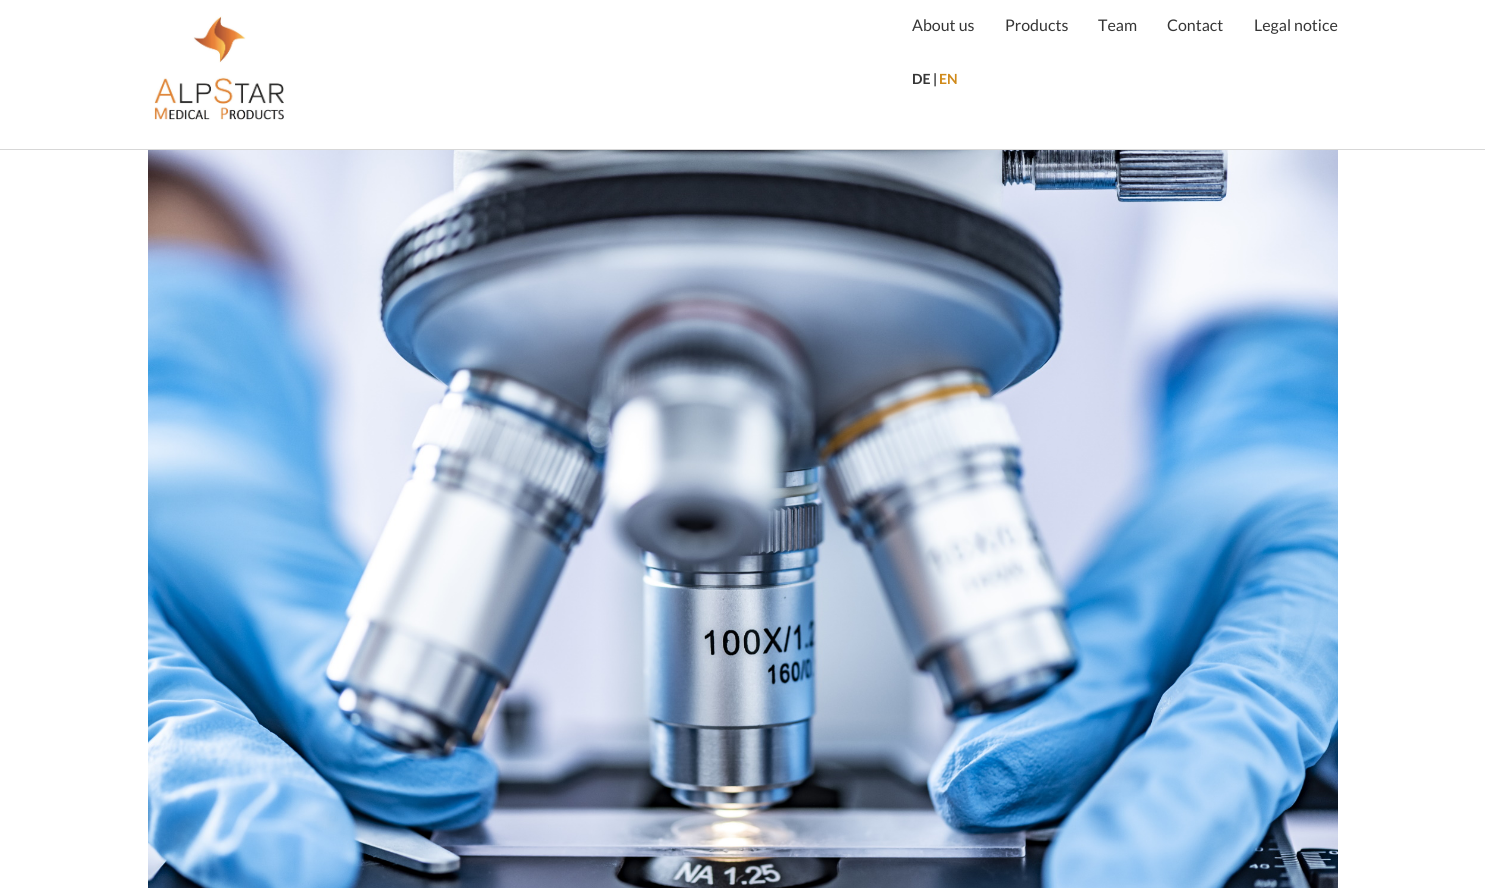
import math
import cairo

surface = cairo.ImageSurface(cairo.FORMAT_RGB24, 1485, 888)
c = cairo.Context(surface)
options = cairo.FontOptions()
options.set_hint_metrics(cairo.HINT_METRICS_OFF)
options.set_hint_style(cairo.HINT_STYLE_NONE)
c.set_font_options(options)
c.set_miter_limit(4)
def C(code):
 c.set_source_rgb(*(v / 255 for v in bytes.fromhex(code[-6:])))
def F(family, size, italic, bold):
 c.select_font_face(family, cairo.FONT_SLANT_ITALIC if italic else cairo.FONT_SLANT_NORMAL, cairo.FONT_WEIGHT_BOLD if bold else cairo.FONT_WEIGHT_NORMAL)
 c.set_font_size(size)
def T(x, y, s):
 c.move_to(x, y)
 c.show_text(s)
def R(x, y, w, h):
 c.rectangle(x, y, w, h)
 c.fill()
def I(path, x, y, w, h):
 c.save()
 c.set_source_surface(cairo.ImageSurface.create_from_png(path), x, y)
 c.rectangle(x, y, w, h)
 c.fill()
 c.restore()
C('ffffff')
c.paint()
C('d7d7d7')
R(0,149,1485,1)
I('1.png',154,16,130,104)
F('Lato',16,0,0)
C('353535')
T(912,31,'About us')
T(1005,31,'Products')
T(1098,31,'Team')
T(1167,31,'Contact')
T(1254,31,'Legal notice')
F('Lato',14,0,1)
T(912,84,'DE')
T(933,84,'|')
C('d08a1a')
T(939,84,'EN')
I('2.png',148,150,1190,738)
surface.write_to_png('o.png')
